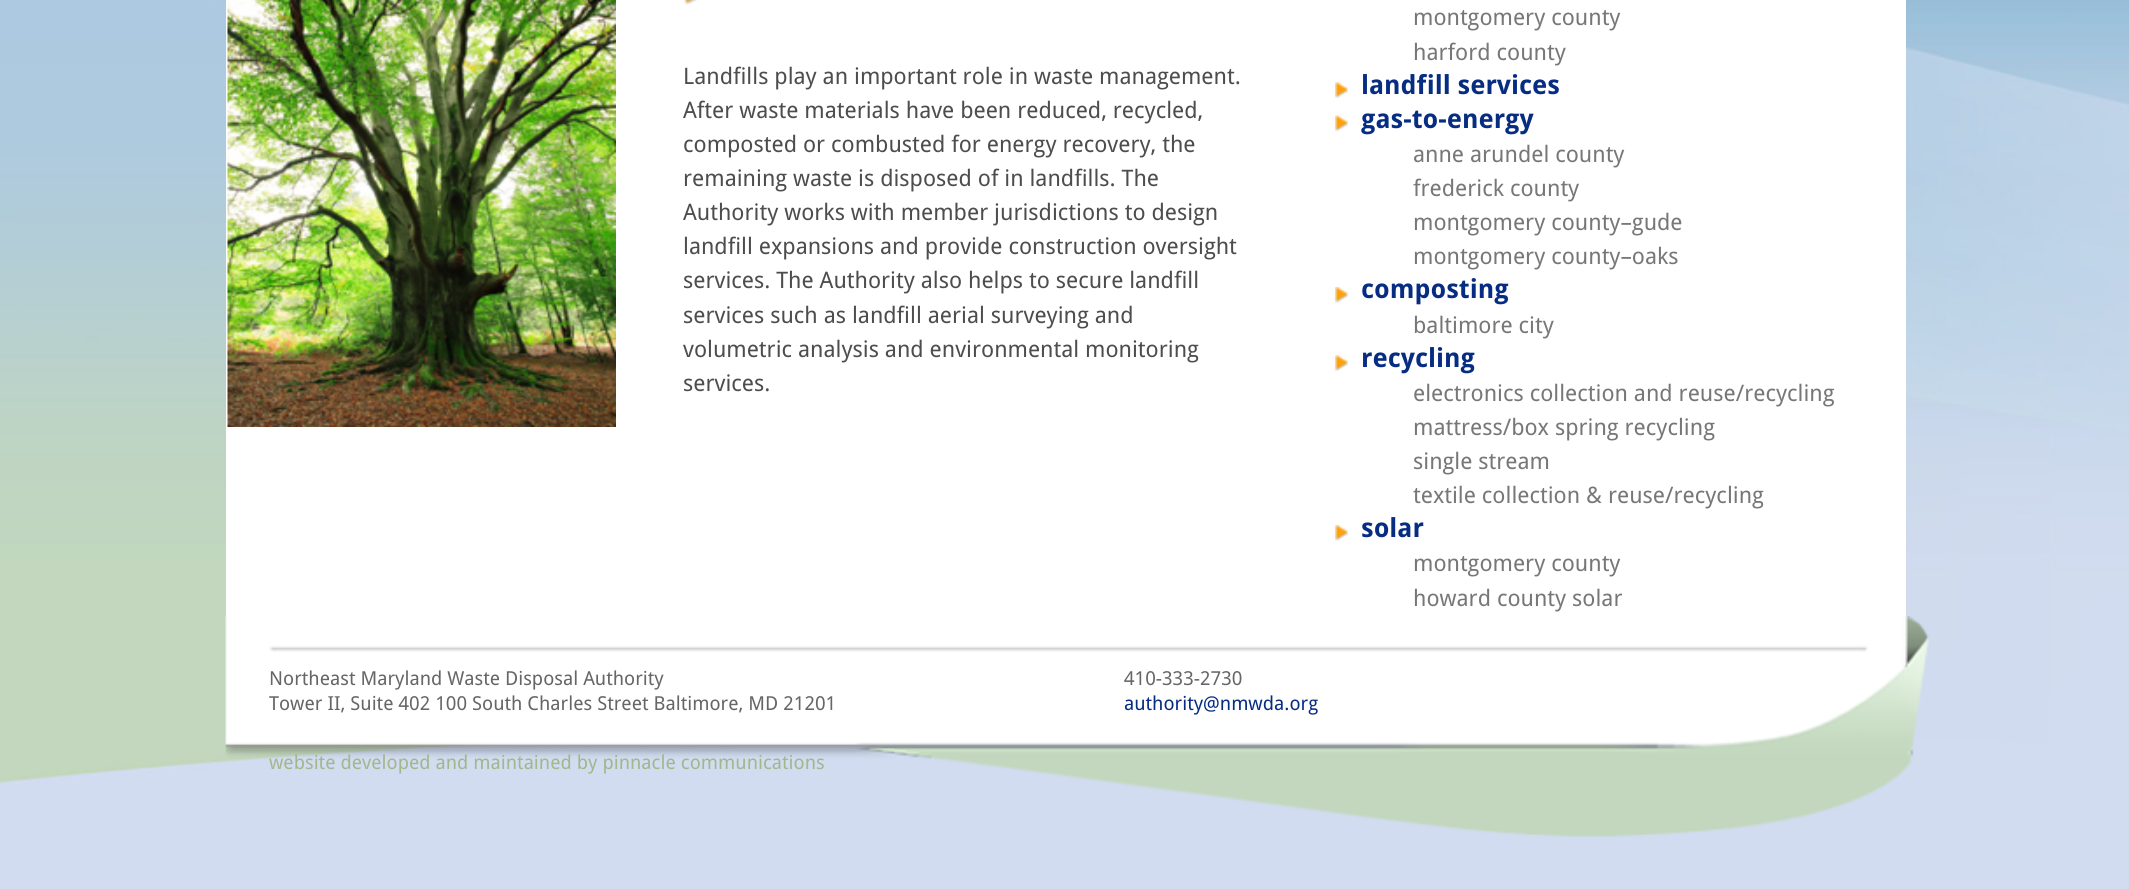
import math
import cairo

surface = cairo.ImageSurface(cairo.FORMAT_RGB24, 2129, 889)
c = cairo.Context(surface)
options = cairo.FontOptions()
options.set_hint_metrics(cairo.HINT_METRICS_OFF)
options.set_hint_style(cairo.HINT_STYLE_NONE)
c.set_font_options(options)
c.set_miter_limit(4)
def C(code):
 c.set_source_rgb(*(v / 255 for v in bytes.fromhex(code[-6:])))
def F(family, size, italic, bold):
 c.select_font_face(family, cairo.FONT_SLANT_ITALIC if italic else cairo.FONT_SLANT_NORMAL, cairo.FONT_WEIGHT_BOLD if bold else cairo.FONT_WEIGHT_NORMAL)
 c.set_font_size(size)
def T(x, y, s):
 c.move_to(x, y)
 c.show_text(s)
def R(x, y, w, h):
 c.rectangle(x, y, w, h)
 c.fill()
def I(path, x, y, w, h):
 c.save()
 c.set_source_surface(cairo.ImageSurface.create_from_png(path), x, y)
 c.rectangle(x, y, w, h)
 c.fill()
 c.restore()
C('d1dcf0')
c.paint()
I('1.png',0,0,2129,784)
C('ffffff')
R(226,0,1680,616)
I('2.png',227,0,389,427)
I('3.png',684,0,14,5)
F('Droid Sans',22.75,0,0)
C('4d4d4f')
T(683,84,'Landfills play an important role in waste management.')
T(683,118,'After waste materials have been reduced, recycled,')
T(683,152,'composted or combusted for energy recovery, the')
T(683,186,'remaining waste is disposed of in landfills. The')
T(683,220,'Authority works with member jurisdictions to design')
T(683,254,'landfill expansions and provide construction oversight')
T(683,288,'services. The Authority also helps to secure landfill')
T(683,323,'services such as landfill aerial surveying and')
T(683,357,'volumetric analysis and environmental monitoring')
T(683,391,'services.')
C('777777')
T(1413,25,'montgomery county')
T(1413,60,'harford county')
I('4.png',1335,82,13,16)
F('Droid Sans',26.25,0,1)
C('072d83')
T(1361,94,'landfill services')
I('5.png',1335,115,13,17)
T(1361,128,'gas-to-energy')
F('Droid Sans',22.75,0,0)
C('777777')
T(1413,162,'anne arundel county')
T(1413,196,'frederick county')
T(1413,230,'montgomery county–gude')
T(1413,264,'montgomery county–oaks')
I('6.png',1335,287,13,16)
F('Droid Sans',26.25,0,1)
C('072d83')
T(1361,298,'composting')
F('Droid Sans',22.75,0,0)
C('777777')
T(1413,333,'baltimore city')
I('4.png',1335,355,13,16)
F('Droid Sans',26.25,0,1)
C('072d83')
T(1361,367,'recycling')
F('Droid Sans',22.75,0,0)
C('777777')
T(1413,401,'electronics collection and reuse/recycling')
T(1413,435,'mattress/box spring recycling')
T(1413,469,'single stream')
T(1413,503,'textile collection & reuse/recycling')
I('6.png',1335,525,13,16)
F('Droid Sans',26.25,0,1)
C('072d83')
T(1361,537,'solar')
F('Droid Sans',22.75,0,0)
C('777777')
T(1413,571,'montgomery county')
T(1413,606,'howard county solar')
I('7.png',225,616,1704,221)
F('Droid Sans',19.25,0,0)
C('666666')
T(269,685,'Northeast Maryland Waste Disposal Authority')
T(269,710,'Tower II, Suite 402 100 South Charles Street Baltimore, MD 21201')
T(1124,685,'410-333-2730')
C('072d83')
T(1124,710,'authority@nmwda.org')
C('a5b58c')
T(269,769,'website developed and maintained by pinnacle communications')
surface.write_to_png('o.png')
